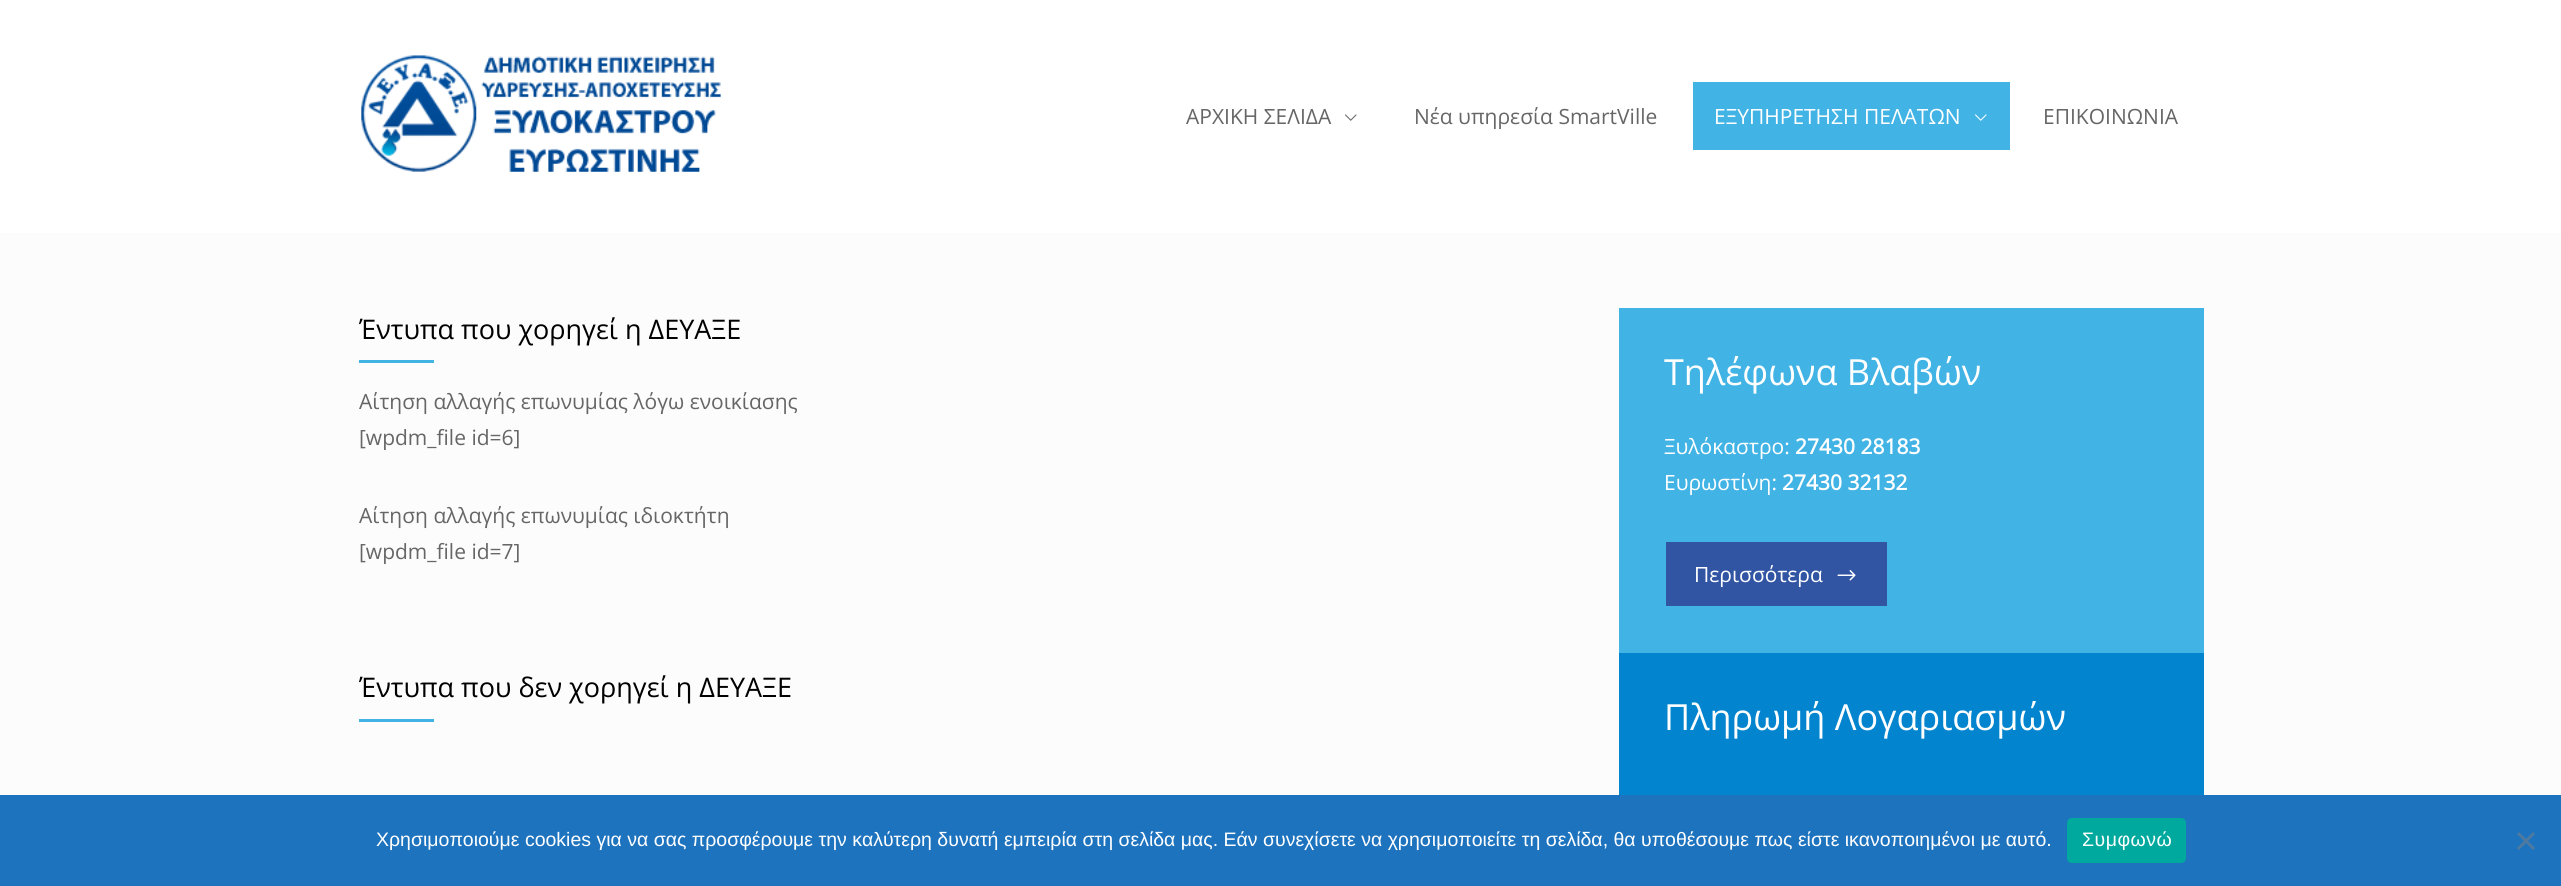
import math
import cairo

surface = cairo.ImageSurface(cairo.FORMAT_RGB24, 2561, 886)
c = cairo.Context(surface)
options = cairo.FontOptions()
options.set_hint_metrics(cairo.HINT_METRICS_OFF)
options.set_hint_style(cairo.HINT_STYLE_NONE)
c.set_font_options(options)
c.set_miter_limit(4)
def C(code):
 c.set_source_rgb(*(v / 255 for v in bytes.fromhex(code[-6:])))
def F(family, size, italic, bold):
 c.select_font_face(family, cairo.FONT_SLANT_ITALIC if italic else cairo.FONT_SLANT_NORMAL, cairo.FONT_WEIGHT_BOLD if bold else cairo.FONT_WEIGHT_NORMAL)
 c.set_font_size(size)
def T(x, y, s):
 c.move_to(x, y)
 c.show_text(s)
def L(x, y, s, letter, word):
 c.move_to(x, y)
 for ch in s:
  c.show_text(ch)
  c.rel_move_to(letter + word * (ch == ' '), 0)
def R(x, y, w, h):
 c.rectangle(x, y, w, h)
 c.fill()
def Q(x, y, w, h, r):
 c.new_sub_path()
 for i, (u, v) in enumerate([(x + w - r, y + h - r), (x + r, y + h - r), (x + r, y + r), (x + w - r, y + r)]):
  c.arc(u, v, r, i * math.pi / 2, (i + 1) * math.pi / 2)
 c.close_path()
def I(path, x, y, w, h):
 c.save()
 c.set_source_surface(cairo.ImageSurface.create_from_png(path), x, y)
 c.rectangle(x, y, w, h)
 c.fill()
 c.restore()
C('fcfcfc')
c.paint()
C('ffffff')
R(0,0,2561,233)
I('1.png',361,55,360,117)
F('Open Sans',21,0,0)
C('666666')
T(1186,124,'ΑΡΧΙΚΗ ΣΕΛΙΔΑ')
I('2.png',1345,114,12,7)
T(1414,124,'Νέα υπηρεσία SmartVille')
C('42b3e5')
R(1693,82,317,68)
C('ffffff')
T(1714,124,'ΕΞΥΠΗΡΕΤΗΣΗ ΠΕΛΑΤΩΝ')
I('3.png',1975,114,12,7)
C('666666')
T(2043,124,'ΕΠΙΚΟΙΝΩΝΙΑ')
F('Open Sans',27,0,0)
C('000000')
T(359,339,'Έντυπα που χορηγεί η ΔΕΥΑΞΕ')
C('42b3e5')
R(359,360,75,3)
F('Open Sans',21,0,0)
C('666666')
T(359,409,'Αίτηση αλλαγής επωνυμίας λόγω ενοικίασης')
T(359,445,'[wpdm_file id=6]')
T(359,523,'Αίτηση αλλαγής επωνυμίας ιδιοκτήτη')
T(359,559,'[wpdm_file id=7]')
F('Open Sans',27,0,0)
C('000000')
T(359,697,'Έντυπα που δεν χορηγεί η ΔΕΥΑΞΕ')
C('42b3e5')
R(359,719,75,3)
R(1619,308,585,345)
F('Open Sans',36,0,0)
C('ffffff')
T(1664,385,'Τηλέφωνα Βλαβών')
F('Open Sans',21,0,0)
T(1664,454,'Ξυλόκαστρο:')
F('Open Sans',21,0,1)
T(1795,454,'27430 28183')
F('Open Sans',21,0,0)
T(1664,490,'Ευρωστίνη:')
F('Open Sans',21,0,1)
T(1782,490,'27430 32132')
C('3155a3')
R(1666,542,221,64)
F('Open Sans',21,0,0)
C('ffffff')
T(1694,582,'Περισσότερα')
I('4.png',1837,570,19,11)
C('0384ce')
R(1619,653,585,142)
F('Open Sans',36,0,0)
C('ffffff')
T(1664,730,'Πληρωμή Λογαριασμών')
C('1e73be')
R(0,795,2561,91)
F('Liberation Sans',19.5,0,0)
C('ffffff')
T(376,846,'Χρησιμοποιούμε cookies για να σας προσφέρουμε την καλύτερη δυνατή εμπειρία στη σελίδα μας. Εάν συνεχίσετε να χρησιμοποιείτε τη σελίδα, θα υποθέσουμε πως είστε ικανοποιημένοι με αυτό.')
C('00a99d')
Q(2067,818,119,45,5)
c.fill()
C('ffffff')
L(2082,846,'Συμφωνώ',.5,0)
C('4f7a9f')
c.new_path()
c.move_to(2533,832)
c.line_to(2535,834)
c.line_to(2519,850)
c.line_to(2517,848)
c.close_path()
c.fill()
c.new_path()
c.move_to(2517,834)
c.line_to(2519,832)
c.line_to(2535,848)
c.line_to(2533,850)
c.close_path()
c.fill()
surface.write_to_png('o.png')
